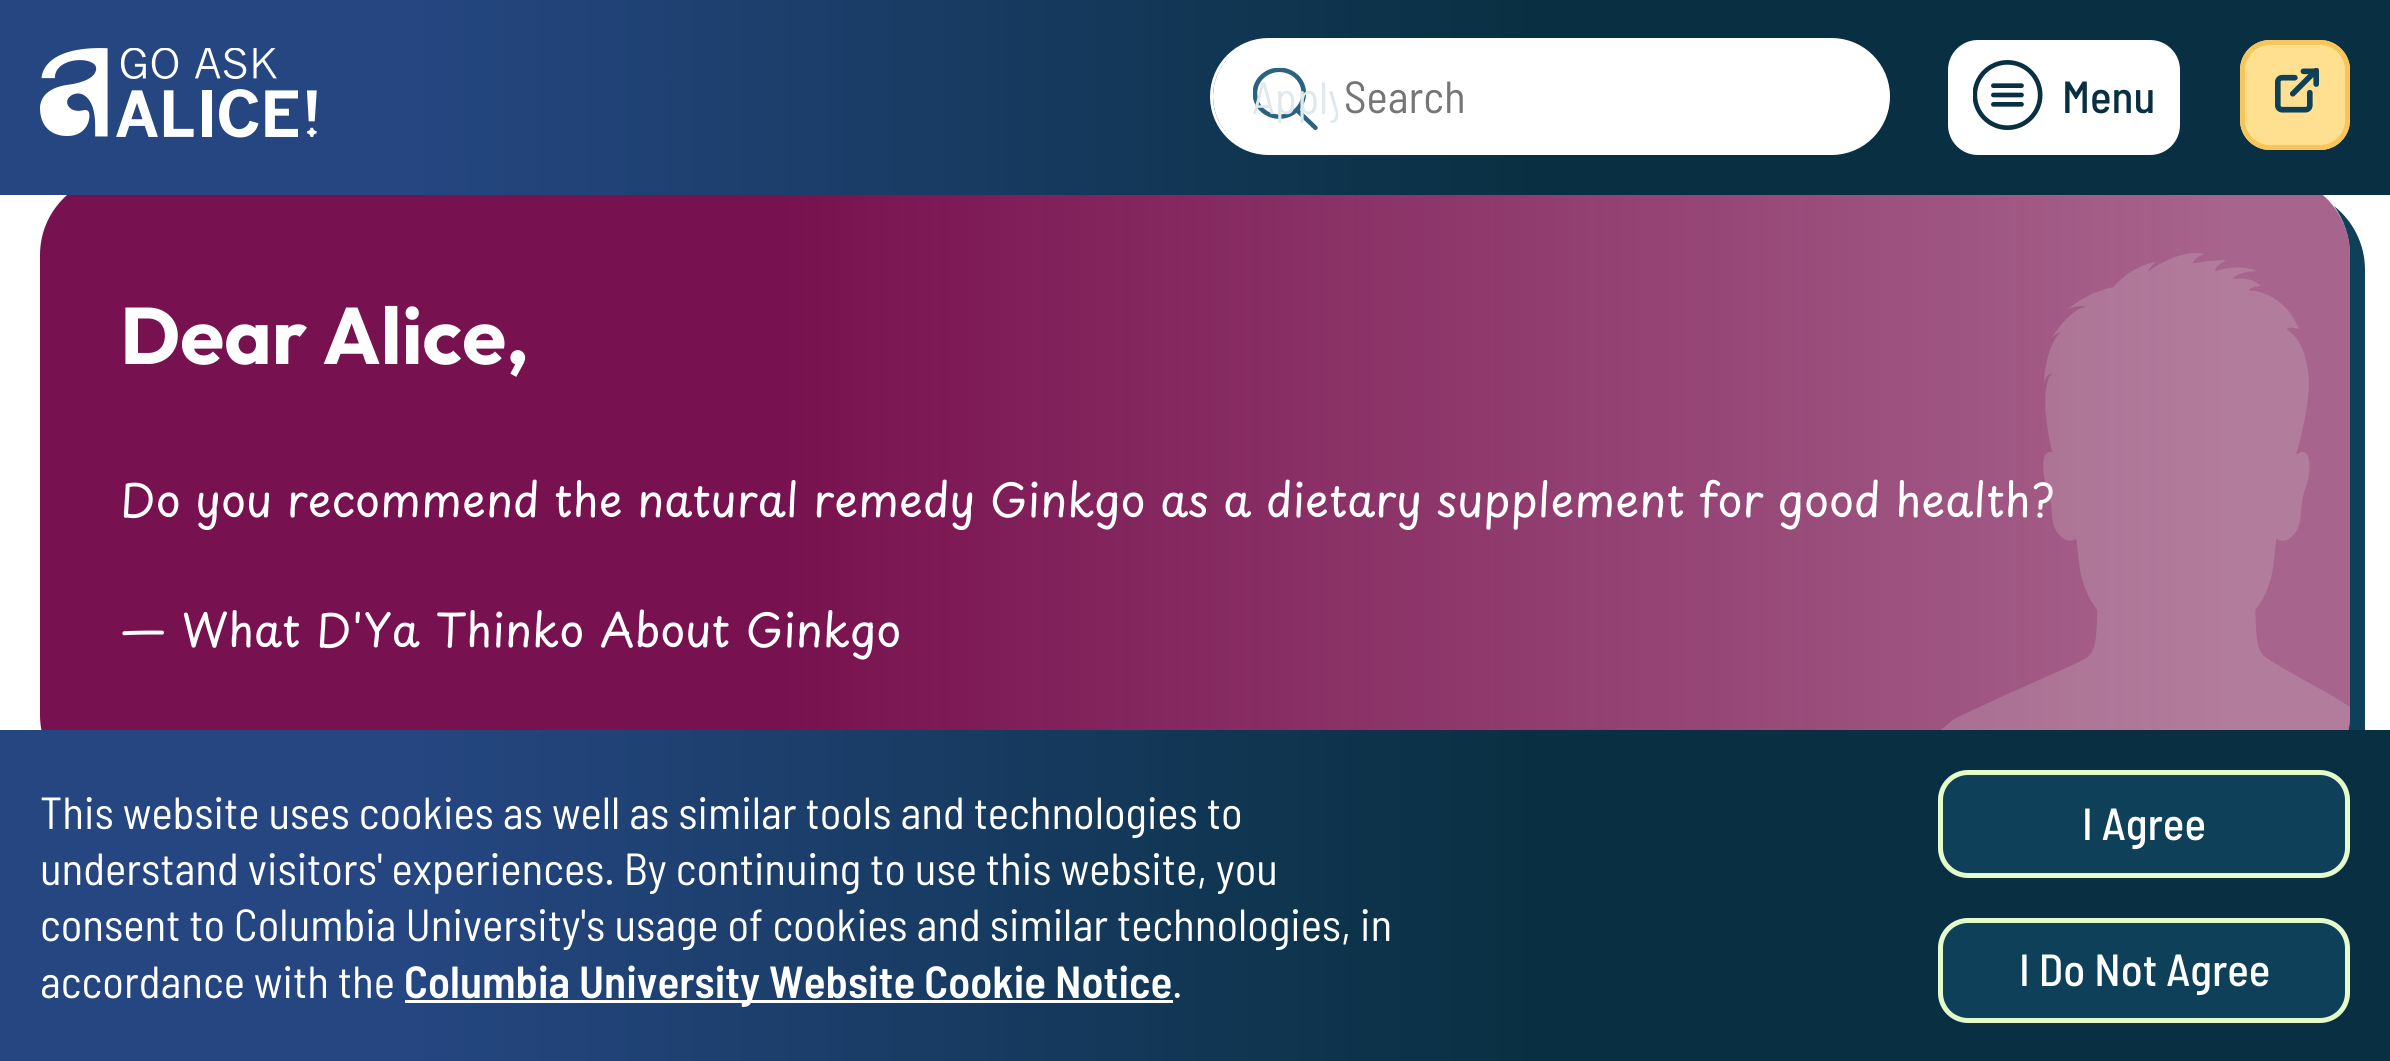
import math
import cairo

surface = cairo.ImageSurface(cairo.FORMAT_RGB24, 2390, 1061)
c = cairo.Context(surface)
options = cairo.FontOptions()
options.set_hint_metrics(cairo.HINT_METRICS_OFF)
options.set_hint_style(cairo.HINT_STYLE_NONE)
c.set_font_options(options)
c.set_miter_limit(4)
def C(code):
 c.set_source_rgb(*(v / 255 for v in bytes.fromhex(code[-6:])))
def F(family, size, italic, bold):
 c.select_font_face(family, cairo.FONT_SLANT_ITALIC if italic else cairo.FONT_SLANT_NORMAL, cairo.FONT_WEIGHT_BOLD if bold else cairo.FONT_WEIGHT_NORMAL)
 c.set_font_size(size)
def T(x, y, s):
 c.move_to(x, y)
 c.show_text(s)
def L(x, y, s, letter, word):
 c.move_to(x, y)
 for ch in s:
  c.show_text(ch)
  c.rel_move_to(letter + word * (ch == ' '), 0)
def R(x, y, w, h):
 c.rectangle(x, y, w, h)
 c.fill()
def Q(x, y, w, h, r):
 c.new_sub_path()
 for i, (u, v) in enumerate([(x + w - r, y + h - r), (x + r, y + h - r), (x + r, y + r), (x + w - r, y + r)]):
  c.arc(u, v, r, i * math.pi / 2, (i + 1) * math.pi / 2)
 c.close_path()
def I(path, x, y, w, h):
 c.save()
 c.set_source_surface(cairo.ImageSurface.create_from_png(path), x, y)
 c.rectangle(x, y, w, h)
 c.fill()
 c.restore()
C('ffffff')
c.paint()
C('0e4159')
c.new_path()
c.move_to(71,779)
c.curve_to(86,798,109,810,135,810)
c.line_to(2285,810)
c.curve_to(2329,810,2365,774,2365,730)
c.line_to(2365,270)
c.curve_to(2365,244,2353,221,2334,206)
c.curve_to(2344,220,2350,237,2350,255)
c.line_to(2350,715)
c.curve_to(2350,759,2314,795,2270,795)
c.line_to(120,795)
c.curve_to(102,795,85,789,71,779)
c.close_path()
c.fill()
gradient = cairo.LinearGradient(40,485,2350,485)
gradient.add_color_stop_rgba(.32,0.471,0.067,0.31,1)
gradient.add_color_stop_rgba(.95,0.471,0.067,0.31,.65)
c.set_source(gradient)
Q(40,175,2310,620,80)
c.fill()
gradient = cairo.LinearGradient(0,98,2390,97)
gradient.add_color_stop_rgba(.17,0.145,0.275,0.506,1)
gradient.add_color_stop_rgba(.64,0.035,0.188,0.259,1)
c.set_source(gradient)
R(0,0,2390,195)
I('1.png',40,48,277,90)
C('ffffff')
Q(1214.5,41.5,672,110,55)
c.fill_preserve()
c.set_line_width(3)
c.stroke()
Q(1211.5,39.5,677,114,57)
c.stroke()
I('2.png',1253,68,65,62)
c.save()
c.rectangle(1238,60,100,75)
c.clip()
F('Barlow Semi Condensed',45,0,0)
C('dfe8ec')
T(1252,114,'Apply')
c.restore()
F('Barlow Semi Condensed',45,0,0)
C('757575')
T(1344,113,'Search')
C('ffffff')
Q(1950.5,42.5,227,110,27.5)
c.fill_preserve()
c.set_line_width(5)
c.stroke()
I('3.png',1973,60,70,70)
F('Barlow Semi Condensed Medium',45,0,0)
C('093042')
T(2062,113,'Menu')
C('ffe090')
Q(2240,40,110,110,30)
c.fill()
I('4.png',2275,68,45,45)
Q(2242.5,42.5,105,105,27.5)
C('f7c559')
c.stroke()
F('Outfit',80,0,1)
C('ffffff')
T(120,364,'Dear Alice,')
F('Playpen Sans',45,0,0)
T(120,517,'Do you recommend the natural remedy Ginkgo as a dietary supplement for good health?')
I('5.png',1941,253,409,477)
L(120,647,'— What D\'Ya Thinko About Ginkgo',0,1)
gradient = cairo.LinearGradient(0,896,2390,896)
gradient.add_color_stop_rgba(.17,0.145,0.275,0.506,1)
gradient.add_color_stop_rgba(.64,0.035,0.188,0.259,1)
c.set_source(gradient)
R(0,730,2390,331)
F('Barlow Semi Condensed',45,0,0)
C('ffffff')
T(40,829,'This website uses cookies as well as similar tools and technologies to')
T(40,885,'understand visitors\' experiences. By continuing to use this website, you')
T(40,941,'consent to Columbia University\'s usage of cookies and similar technologies, in')
T(40,998,'accordance with the')
R(405,1000,768,3)
F('Barlow Semi Condensed SemiBold',45,0,0)
T(404,998,'Columbia University Website Cookie Notice')
F('Barlow Semi Condensed',45,0,0)
T(1172,998,'.')
C('0e4159')
Q(1940.5,772.5,407,103,27.5)
c.fill_preserve()
C('e6fbca')
c.stroke()
F('Barlow Semi Condensed Medium',45,0,0)
C('ffffff')
T(2082,840,'I Agree')
C('0e4159')
Q(1940.5,920.5,407,100,27.5)
c.fill_preserve()
C('e6fbca')
c.stroke()
C('ffffff')
T(2019,986,'I Do Not Agree')
surface.write_to_png('o.png')
